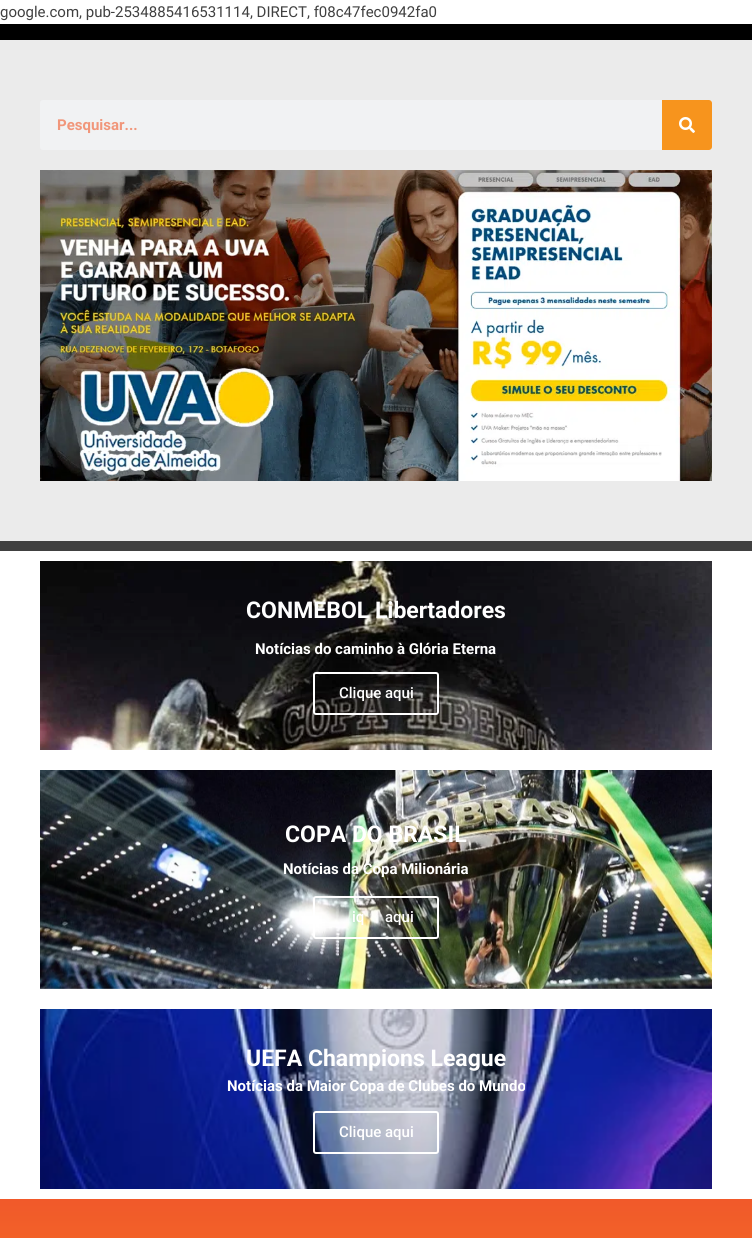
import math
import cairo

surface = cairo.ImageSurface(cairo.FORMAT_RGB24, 752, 1238)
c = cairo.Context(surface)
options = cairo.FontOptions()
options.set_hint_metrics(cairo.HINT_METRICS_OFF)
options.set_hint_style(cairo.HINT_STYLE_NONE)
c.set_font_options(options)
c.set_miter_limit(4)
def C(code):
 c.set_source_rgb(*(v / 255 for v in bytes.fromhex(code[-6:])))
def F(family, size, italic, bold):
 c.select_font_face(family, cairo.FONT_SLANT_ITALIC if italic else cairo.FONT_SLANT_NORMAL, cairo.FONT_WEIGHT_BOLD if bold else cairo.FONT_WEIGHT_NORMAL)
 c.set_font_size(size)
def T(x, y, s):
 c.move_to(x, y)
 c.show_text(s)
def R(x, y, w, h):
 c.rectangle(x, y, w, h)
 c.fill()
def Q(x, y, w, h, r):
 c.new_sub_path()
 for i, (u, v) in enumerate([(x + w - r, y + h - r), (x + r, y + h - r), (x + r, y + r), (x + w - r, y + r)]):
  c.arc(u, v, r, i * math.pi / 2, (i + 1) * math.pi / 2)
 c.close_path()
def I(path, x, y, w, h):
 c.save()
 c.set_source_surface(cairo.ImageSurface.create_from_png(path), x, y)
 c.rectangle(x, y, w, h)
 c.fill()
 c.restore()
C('ffffff')
c.paint()
F('Roboto',15,0,0)
C('404040')
T(0,17,'google.com, pub-2534885416531114, DIRECT, f08c47fec0942fa0')
C('000000')
R(0,24,752,16)
C('ebebeb')
R(0,40,752,501)
C('404040')
R(0,541,752,10)
C('f1f2f3')
Q(40,100,672,50,3)
c.fill()
F('Roboto',15,0,1)
C('f1967a')
T(57,130,'Pesquisar...')
C('f7941d')
c.new_path()
c.move_to(662,100)
c.line_to(709,100)
c.curve_to(710.5,100,712,101.5,712,103)
c.line_to(712,147)
c.curve_to(712,148.5,710.5,150,709,150)
c.line_to(662,150)
c.close_path()
c.fill()
I('1.png',679,117,16,16)
I('2.png',40,170,672,311)
I('3.png',40,561,672,189)
F('Roboto',23,0,1)
C('ffffff')
T(246,618,'CONMEBOL Libertadores')
F('Roboto',15,0,1)
T(255,654,'Notícias do caminho à Glória Eterna')
Q(314,673,124,41,2)
c.stroke()
F('Roboto Medium',15,0,0)
T(339,698,'Clique aqui')
I('4.png',40,770,672,219)
F('Roboto',23,0,1)
T(285,842,'COPA DO BRASIL')
F('Roboto',15,0,1)
T(283,874,'Notícias da Copa Milionária')
Q(314,897,124,41,2)
c.stroke()
F('Roboto Medium',15,0,0)
T(352,922,'iq')
T(385,922,'aqui')
I('5.png',40,1009,672,180)
F('Roboto',23,0,1)
T(246,1066,'UEFA Champions League')
F('Roboto',15,0,1)
T(227,1091,'Notícias da Maior Copa de Clubes do Mundo')
Q(314,1112,124,41,2)
c.stroke()
F('Roboto Medium',15,0,0)
T(339,1137,'Clique aqui')
gradient = cairo.LinearGradient(376,1199,376,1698)
gradient.add_color_stop_rgba(0,0.945,0.349,0.165,1)
gradient.add_color_stop_rgba(.57,0.969,0.58,0.114,1)
c.set_source(gradient)
R(0,1199,752,39)
surface.write_to_png('o.png')
